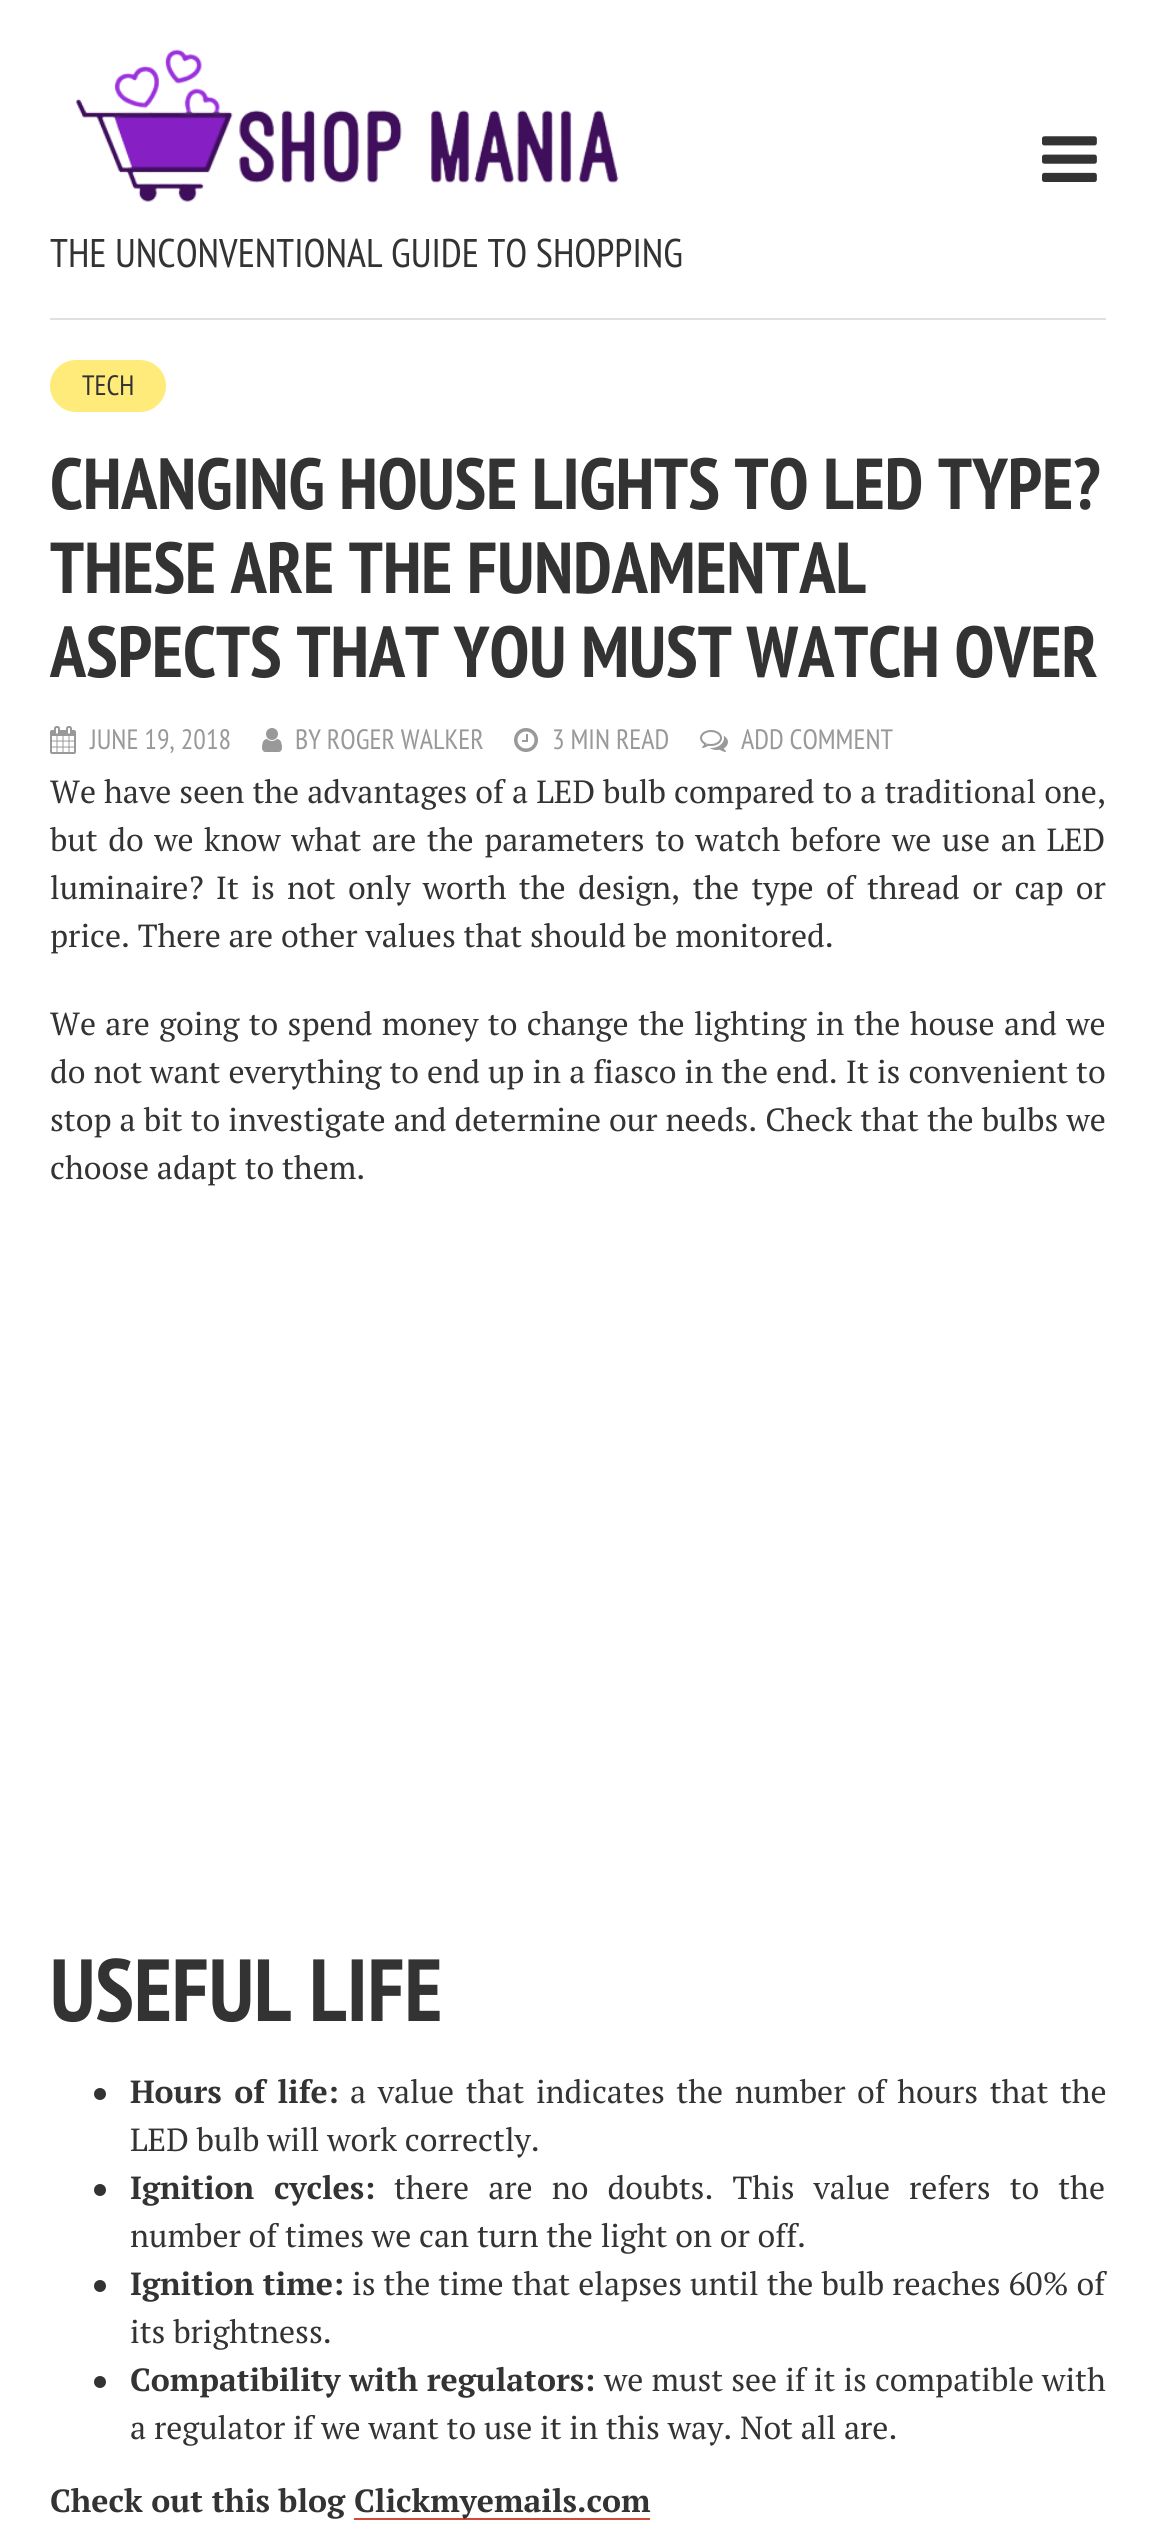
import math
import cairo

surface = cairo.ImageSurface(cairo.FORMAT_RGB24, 1155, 2524)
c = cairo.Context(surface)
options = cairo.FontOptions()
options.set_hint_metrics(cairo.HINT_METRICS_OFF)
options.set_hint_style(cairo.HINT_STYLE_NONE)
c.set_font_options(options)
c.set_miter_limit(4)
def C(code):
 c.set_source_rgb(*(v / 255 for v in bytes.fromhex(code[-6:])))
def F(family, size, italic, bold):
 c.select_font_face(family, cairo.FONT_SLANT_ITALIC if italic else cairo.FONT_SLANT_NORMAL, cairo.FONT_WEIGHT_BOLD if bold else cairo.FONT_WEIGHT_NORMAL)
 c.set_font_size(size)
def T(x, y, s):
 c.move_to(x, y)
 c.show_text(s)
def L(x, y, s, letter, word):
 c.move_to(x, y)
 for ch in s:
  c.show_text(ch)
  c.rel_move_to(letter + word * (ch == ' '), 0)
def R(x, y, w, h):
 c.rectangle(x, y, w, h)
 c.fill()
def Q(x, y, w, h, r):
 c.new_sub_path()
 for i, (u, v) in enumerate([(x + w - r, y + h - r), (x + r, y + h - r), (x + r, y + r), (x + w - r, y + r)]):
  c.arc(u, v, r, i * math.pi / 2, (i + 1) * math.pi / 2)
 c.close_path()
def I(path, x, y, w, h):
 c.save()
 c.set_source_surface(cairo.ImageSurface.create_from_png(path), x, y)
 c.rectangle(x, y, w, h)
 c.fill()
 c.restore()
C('ffffff')
c.paint()
I('1.png',1042,136,55,46)
I('2.png',76,49,543,153)
F('PT Sans Narrow',40,0,0)
C('333333')
T(50,267,'THE UNCONVENTIONAL GUIDE TO SHOPPING')
C('e0e0e0')
R(50,318,1056,2)
C('ffeb79')
Q(50,360,116,52,26)
c.fill()
F('PT Sans Narrow',28,0,0)
C('333333')
T(82,395,'TECH')
F('PT Sans Narrow',72,0,1)
T(50,509,'CHANGING HOUSE LIGHTS TO LED TYPE?')
T(50,593,'THESE ARE THE FUNDAMENTAL')
T(50,677,'ASPECTS THAT YOU MUST WATCH OVER')
I('3.png',50,726,26,28)
F('PT Sans Narrow',28,0,0)
C('999999')
T(90,749,'JUNE 19, 2018')
I('4.png',262,728,20,24)
T(295,749,'BY ROGER WALKER')
I('5.png',514,728,24,24)
T(552,749,'3 MIN READ')
I('6.png',700,730,28,22)
T(741,749,'ADD COMMENT')
F('PT Serif',32,0,0)
C('333333')
L(50,803,'We have seen the advantages of a LED bulb compared to a traditional one,',0,.25)
L(50,851,'but do we know what are the parameters to watch before we use an LED',0,2.75)
L(50,899,'luminaire? It is not only worth the design, the type of thread or cap or',0,4.5)
T(50,947,'price. There are other values that should be monitored.')
L(50,1035,'We are going to spend money to change the lighting in the house and we',0,1.6)
L(50,1083,'do not want everything to end up in a fiasco in the end. It is convenient to',0,.25)
L(50,1131,'stop a bit to investigate and determine our needs. Check that the bulbs we',0,.25)
T(50,1179,'choose adapt to them.')
F('PT Sans Narrow',88,0,1)
T(50,2021,'USEFUL LIFE')
c.new_path()
c.arc(100,2094,6,0,2 * math.pi)
c.fill()
F('PT Serif',32,0,1)
L(130,2103,'Hours of life:',0,3.75)
F('PT Serif',32,0,0)
L(350,2103,'a value that indicates the number of hours that the',0,3.75)
T(130,2151,'LED bulb will work correctly.')
c.new_path()
c.arc(100,2190,6,0,2 * math.pi)
c.fill()
F('PT Serif',32,0,1)
L(130,2199,'Ignition cycles:',0,11.25)
F('PT Serif',32,0,0)
L(394,2199,'there are no doubts. This value refers to the',0,11.25)
T(130,2247,'number of times we can turn the light on or off.')
c.new_path()
c.arc(100,2286,6,0,2 * math.pi)
c.fill()
F('PT Serif',32,0,1)
T(130,2295,'Ignition time:')
F('PT Serif',32,0,0)
L(352,2295,'is the time that elapses until the bulb reaches 60% of',0,.25)
T(130,2343,'its brightness.')
c.new_path()
c.arc(100,2382,6,0,2 * math.pi)
c.fill()
F('PT Serif',32,0,1)
T(130,2391,'Compatibility with regulators:')
F('PT Serif',32,0,0)
L(604,2391,'we must see if it is compatible with',0,.25)
T(130,2439,'a regulator if we want to use it in this way. Not all are.')
F('PT Serif',32,0,1)
T(50,2512,'Check out this blog')
C('d34836')
R(354,2518,296,2)
C('333333')
T(354,2512,'Clickmyemails.com')
surface.write_to_png('o.png')
